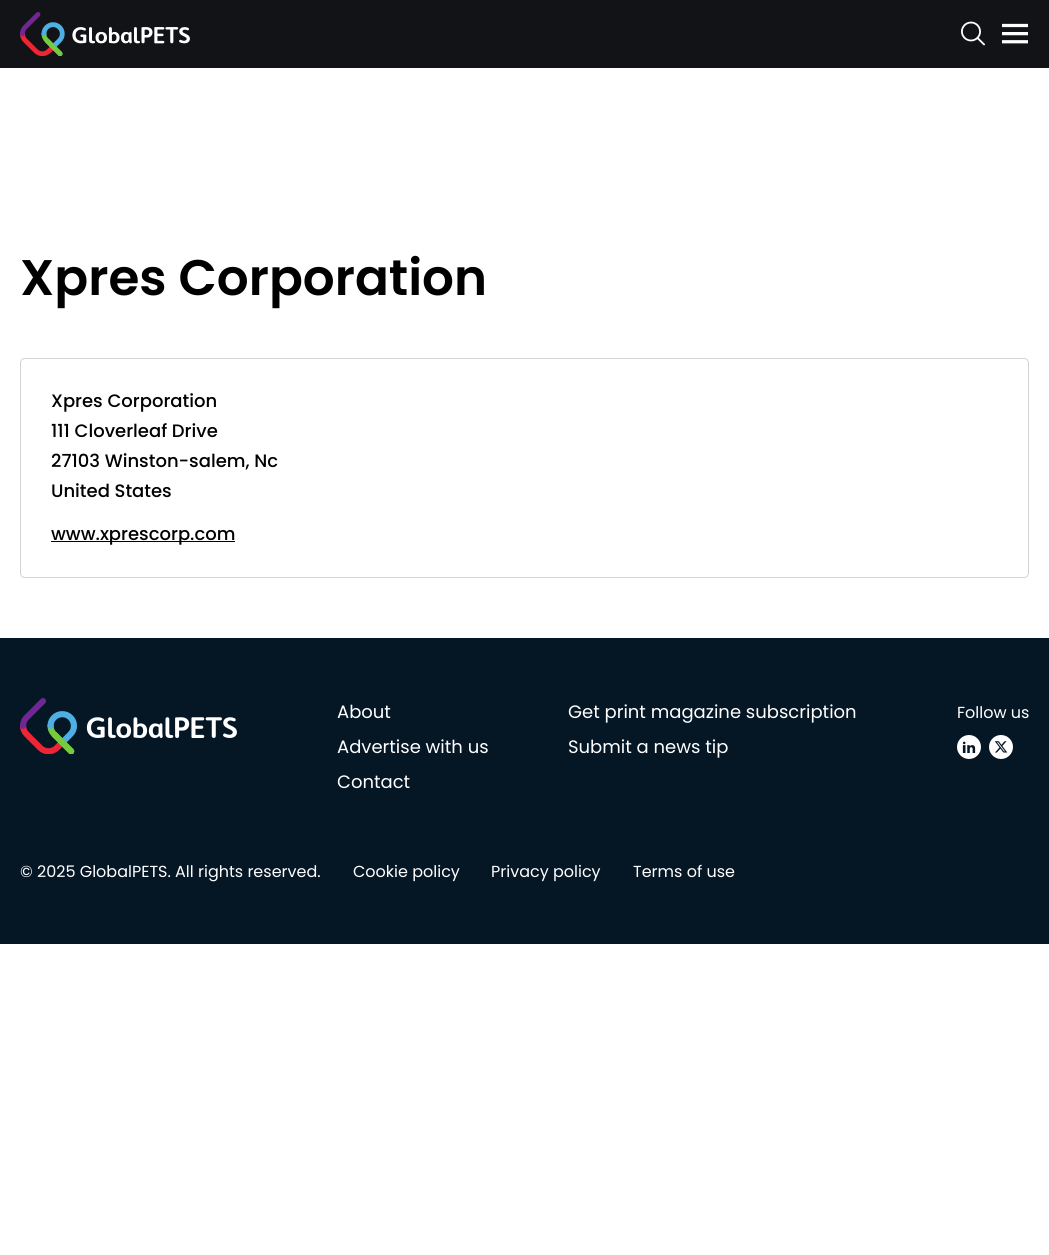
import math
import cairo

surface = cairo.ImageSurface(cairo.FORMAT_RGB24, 1049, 1255)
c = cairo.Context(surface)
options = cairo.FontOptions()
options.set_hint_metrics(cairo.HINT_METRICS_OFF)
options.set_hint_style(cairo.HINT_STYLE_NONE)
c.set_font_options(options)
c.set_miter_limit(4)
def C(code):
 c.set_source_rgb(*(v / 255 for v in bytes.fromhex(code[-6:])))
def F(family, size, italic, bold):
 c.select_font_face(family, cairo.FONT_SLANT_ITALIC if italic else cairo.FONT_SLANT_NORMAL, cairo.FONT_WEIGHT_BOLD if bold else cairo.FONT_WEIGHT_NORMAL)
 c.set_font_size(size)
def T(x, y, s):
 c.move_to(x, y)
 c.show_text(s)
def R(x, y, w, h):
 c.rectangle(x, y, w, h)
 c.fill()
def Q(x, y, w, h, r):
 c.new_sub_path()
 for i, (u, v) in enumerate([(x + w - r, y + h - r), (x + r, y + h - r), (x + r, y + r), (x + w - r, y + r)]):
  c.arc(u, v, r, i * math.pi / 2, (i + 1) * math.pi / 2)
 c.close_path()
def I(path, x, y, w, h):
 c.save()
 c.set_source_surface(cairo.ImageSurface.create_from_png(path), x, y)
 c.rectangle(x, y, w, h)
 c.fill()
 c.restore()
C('ffffff')
c.paint()
C('111316')
R(0,0,1049,68)
I('1.png',20,12,170,44)
I('2.png',961,21,24,25)
I('3.png',1002,23,26,21)
F('Poppins SemiBold',50,0,0)
C('000000')
T(20,295,'Xpres Corporation')
Q(20.5,358.5,1008,219,4.5)
C('d4d4d4')
c.set_line_width(1)
c.stroke()
F('Poppins Medium',18,0,0)
C('000000')
T(51,407,'Xpres Corporation')
T(51,437,'111 Cloverleaf Drive')
T(51,467,'27103 Winston-salem, Nc')
T(51,497,'United States')
R(51,541,184,1)
T(51,540,'www.xprescorp.com')
C('051625')
R(0,638,1049,306)
I('4.png',20,698,217,56)
F('Poppins',18,0,0)
C('ffffff')
T(337,718,'About')
T(568,718,'Get print magazine subscription')
T(337,753,'Advertise with us')
T(568,753,'Submit a news tip')
T(337,788,'Contact')
F('Poppins',16,0,0)
T(957,718,'Follow us')
c.new_path()
c.arc(969,747,12,0,2 * math.pi)
c.fill()
I('5.png',962,741,14,12)
c.arc(1001,747,12,0,2 * math.pi)
c.fill()
I('6.png',994,741,14,12)
T(20,877,'© 2025 GlobalPETS. All rights reserved.')
T(353,877,'Cookie policy')
T(491,877,'Privacy policy')
T(633,877,'Terms of use')
surface.write_to_png('o.png')
